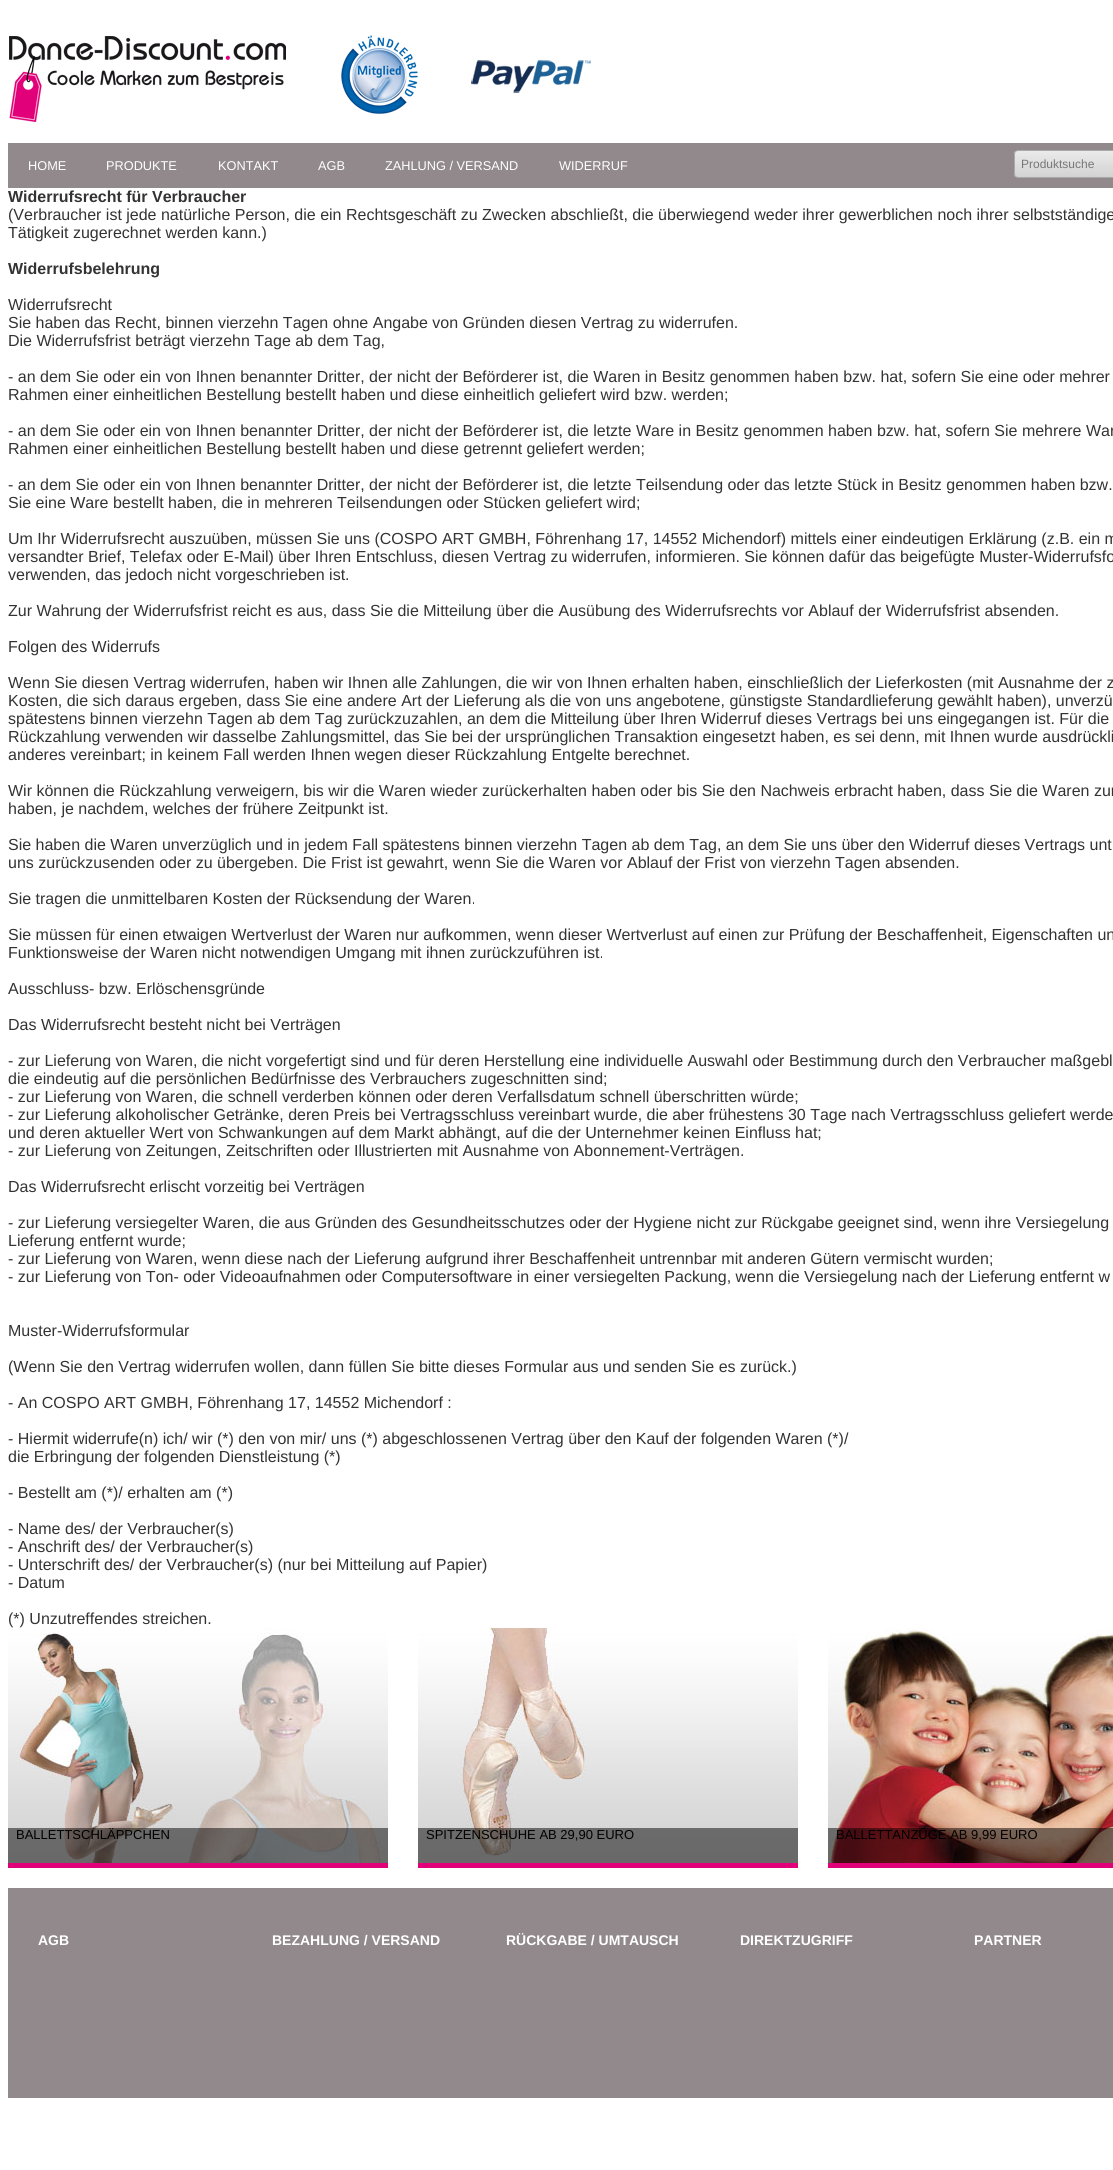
import math
import cairo

surface = cairo.ImageSurface(cairo.FORMAT_RGB24, 1113, 2170)
c = cairo.Context(surface)
options = cairo.FontOptions()
options.set_hint_metrics(cairo.HINT_METRICS_OFF)
options.set_hint_style(cairo.HINT_STYLE_NONE)
c.set_font_options(options)
c.set_miter_limit(4)
def C(code):
 c.set_source_rgb(*(v / 255 for v in bytes.fromhex(code[-6:])))
def F(family, size, italic, bold):
 c.select_font_face(family, cairo.FONT_SLANT_ITALIC if italic else cairo.FONT_SLANT_NORMAL, cairo.FONT_WEIGHT_BOLD if bold else cairo.FONT_WEIGHT_NORMAL)
 c.set_font_size(size)
def T(x, y, s):
 c.move_to(x, y)
 c.show_text(s)
def R(x, y, w, h):
 c.rectangle(x, y, w, h)
 c.fill()
def Q(x, y, w, h, r):
 c.new_sub_path()
 for i, (u, v) in enumerate([(x + w - r, y + h - r), (x + r, y + h - r), (x + r, y + r), (x + w - r, y + r)]):
  c.arc(u, v, r, i * math.pi / 2, (i + 1) * math.pi / 2)
 c.close_path()
def I(path, x, y, w, h):
 c.save()
 c.set_source_surface(cairo.ImageSurface.create_from_png(path), x, y)
 c.rectangle(x, y, w, h)
 c.fill()
 c.restore()
C('ffffff')
c.paint()
I('1.png',9,36,277,86)
I('2.png',341,35,77,79)
I('3.png',471,60,120,33)
C('91898b')
R(8,143,1105,45)
F('Liberation Sans',12.75,0,0)
C('ffffff')
T(28,170,'HOME')
T(106,170,'PRODUKTE')
T(218,170,'KONTAKT')
T(318,170,'AGB')
T(385,170,'ZAHLUNG / VERSAND')
T(559,170,'WIDERRUF')
c.save()
Q(1014,150,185,28,4)
c.clip()
gradient = cairo.LinearGradient(1015,151,1015,177)
gradient.add_color_stop_rgba(0,0.769,0.769,0.769,1)
gradient.add_color_stop_rgba(0,0.918,0.918,0.918,1)
gradient.add_color_stop_rgba(1,0.827,0.827,0.827,1)
c.set_source(gradient)
R(1014,151,99,26)
c.restore()
Q(1014.5,150.5,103,27,3.5)
C('aaaaaa')
c.set_line_width(1)
c.stroke()
F('Liberation Sans',12,0,0)
C('777777')
T(1021,168,'Produktsuche')
F('Liberation Sans',16,0,1)
C('333333')
T(8,202,'Widerrufsrecht für Verbraucher')
F('Liberation Sans',16,0,0)
T(8,220,'(Verbraucher ist jede natürliche Person, die ein Rechtsgeschäft zu Zwecken abschließt, die überwiegend weder ihrer gewerblichen noch ihrer selbstständige')
T(8,238,'Tätigkeit zugerechnet werden kann.)')
F('Liberation Sans',16,0,1)
T(8,274,'Widerrufsbelehrung')
F('Liberation Sans',16,0,0)
T(8,310,'Widerrufsrecht')
T(8,328,'Sie haben das Recht, binnen vierzehn Tagen ohne Angabe von Gründen diesen Vertrag zu widerrufen.')
T(8,346,'Die Widerrufsfrist beträgt vierzehn Tage ab dem Tag,')
T(8,382,'- an dem Sie oder ein von Ihnen benannter Dritter, der nicht der Beförderer ist, die Waren in Besitz genommen haben bzw. hat, sofern Sie eine oder mehrer')
T(8,400,'Rahmen einer einheitlichen Bestellung bestellt haben und diese einheitlich geliefert wird bzw. werden;')
T(8,436,'- an dem Sie oder ein von Ihnen benannter Dritter, der nicht der Beförderer ist, die letzte Ware in Besitz genommen haben bzw. hat, sofern Sie mehrere War')
T(8,454,'Rahmen einer einheitlichen Bestellung bestellt haben und diese getrennt geliefert werden;')
T(8,490,'- an dem Sie oder ein von Ihnen benannter Dritter, der nicht der Beförderer ist, die letzte Teilsendung oder das letzte Stück in Besitz genommen haben bzw.')
T(8,508,'Sie eine Ware bestellt haben, die in mehreren Teilsendungen oder Stücken geliefert wird;')
T(8,544,'Um Ihr Widerrufsrecht auszuüben, müssen Sie uns (COSPO ART GMBH, Föhrenhang 17, 14552 Michendorf) mittels einer eindeutigen Erklärung (z.B. ein m')
T(8,562,'versandter Brief, Telefax oder E-Mail) über Ihren Entschluss, diesen Vertrag zu widerrufen, informieren. Sie können dafür das beigefügte Muster-Widerrufsfo')
T(8,580,'verwenden, das jedoch nicht vorgeschrieben ist.')
T(8,616,'Zur Wahrung der Widerrufsfrist reicht es aus, dass Sie die Mitteilung über die Ausübung des Widerrufsrechts vor Ablauf der Widerrufsfrist absenden.')
T(8,652,'Folgen des Widerrufs')
T(8,688,'Wenn Sie diesen Vertrag widerrufen, haben wir Ihnen alle Zahlungen, die wir von Ihnen erhalten haben, einschließlich der Lieferkosten (mit Ausnahme der z')
T(8,706,'Kosten, die sich daraus ergeben, dass Sie eine andere Art der Lieferung als die von uns angebotene, günstigste Standardlieferung gewählt haben), unverzü')
T(8,724,'spätestens binnen vierzehn Tagen ab dem Tag zurückzuzahlen, an dem die Mitteilung über Ihren Widerruf dieses Vertrags bei uns eingegangen ist. Für die')
T(8,742,'Rückzahlung verwenden wir dasselbe Zahlungsmittel, das Sie bei der ursprünglichen Transaktion eingesetzt haben, es sei denn, mit Ihnen wurde ausdrückli')
T(8,760,'anderes vereinbart; in keinem Fall werden Ihnen wegen dieser Rückzahlung Entgelte berechnet.')
T(8,796,'Wir können die Rückzahlung verweigern, bis wir die Waren wieder zurückerhalten haben oder bis Sie den Nachweis erbracht haben, dass Sie die Waren zur')
T(8,814,'haben, je nachdem, welches der frühere Zeitpunkt ist.')
T(8,850,'Sie haben die Waren unverzüglich und in jedem Fall spätestens binnen vierzehn Tagen ab dem Tag, an dem Sie uns über den Widerruf dieses Vertrags unt')
T(8,868,'uns zurückzusenden oder zu übergeben. Die Frist ist gewahrt, wenn Sie die Waren vor Ablauf der Frist von vierzehn Tagen absenden.')
T(8,904,'Sie tragen die unmittelbaren Kosten der Rücksendung der Waren.')
T(8,940,'Sie müssen für einen etwaigen Wertverlust der Waren nur aufkommen, wenn dieser Wertverlust auf einen zur Prüfung der Beschaffenheit, Eigenschaften un')
T(8,958,'Funktionsweise der Waren nicht notwendigen Umgang mit ihnen zurückzuführen ist.')
T(8,994,'Ausschluss- bzw. Erlöschensgründe')
T(8,1030,'Das Widerrufsrecht besteht nicht bei Verträgen')
T(8,1066,'- zur Lieferung von Waren, die nicht vorgefertigt sind und für deren Herstellung eine individuelle Auswahl oder Bestimmung durch den Verbraucher maßgebl')
T(8,1084,'die eindeutig auf die persönlichen Bedürfnisse des Verbrauchers zugeschnitten sind;')
T(8,1102,'- zur Lieferung von Waren, die schnell verderben können oder deren Verfallsdatum schnell überschritten würde;')
T(8,1120,'- zur Lieferung alkoholischer Getränke, deren Preis bei Vertragsschluss vereinbart wurde, die aber frühestens 30 Tage nach Vertragsschluss geliefert werde')
T(8,1138,'und deren aktueller Wert von Schwankungen auf dem Markt abhängt, auf die der Unternehmer keinen Einfluss hat;')
T(8,1156,'- zur Lieferung von Zeitungen, Zeitschriften oder Illustrierten mit Ausnahme von Abonnement-Verträgen.')
T(8,1192,'Das Widerrufsrecht erlischt vorzeitig bei Verträgen')
T(8,1228,'- zur Lieferung versiegelter Waren, die aus Gründen des Gesundheitsschutzes oder der Hygiene nicht zur Rückgabe geeignet sind, wenn ihre Versiegelung')
T(8,1246,'Lieferung entfernt wurde;')
T(8,1264,'- zur Lieferung von Waren, wenn diese nach der Lieferung aufgrund ihrer Beschaffenheit untrennbar mit anderen Gütern vermischt wurden;')
T(8,1282,'- zur Lieferung von Ton- oder Videoaufnahmen oder Computersoftware in einer versiegelten Packung, wenn die Versiegelung nach der Lieferung entfernt w')
T(8,1336,'Muster-Widerrufsformular')
T(8,1372,'(Wenn Sie den Vertrag widerrufen wollen, dann füllen Sie bitte dieses Formular aus und senden Sie es zurück.)')
T(8,1408,'- An COSPO ART GMBH, Föhrenhang 17, 14552 Michendorf :')
T(8,1444,'- Hiermit widerrufe(n) ich/ wir (*) den von mir/ uns (*) abgeschlossenen Vertrag über den Kauf der folgenden Waren (*)/')
T(8,1462,'die Erbringung der folgenden Dienstleistung (*)')
T(8,1498,'- Bestellt am (*)/ erhalten am (*)')
T(8,1534,'- Name des/ der Verbraucher(s)')
T(8,1552,'- Anschrift des/ der Verbraucher(s)')
T(8,1570,'- Unterschrift des/ der Verbraucher(s) (nur bei Mitteilung auf Papier)')
T(8,1588,'- Datum')
T(8,1624,'(*) Unzutreffendes streichen.')
I('4.png',8,1628,380,235)
C('e2007a')
R(8,1863,380,5)
c.set_source_rgba(0,0,0,0.5)
R(8,1828,380,35)
F('Liberation Sans',13,0,0)
C('000000')
T(16,1839,'BALLETTSCHLÄPPCHEN')
I('5.png',418,1628,380,235)
C('e2007a')
R(418,1863,380,5)
c.set_source_rgba(0,0,0,0.5)
R(418,1828,380,35)
C('000000')
T(426,1839,'SPITZENSCHUHE AB 29,90 EURO')
C('e2007a')
R(828,1863,285,5)
I('6.png',828,1628,285,235)
c.set_source_rgba(0,0,0,0.5)
R(828,1828,285,35)
C('000000')
T(836,1839,'BALLETTANZÜGE AB 9,99 EURO')
C('91898b')
R(8,1888,1105,210)
F('Liberation Sans',14,0,1)
C('ffffff')
T(38,1945,'AGB')
T(272,1945,'BEZAHLUNG / VERSAND')
T(506,1945,'RÜCKGABE / UMTAUSCH')
T(740,1945,'DIREKTZUGRIFF')
T(974,1945,'PARTNER')
surface.write_to_png('o.png')
